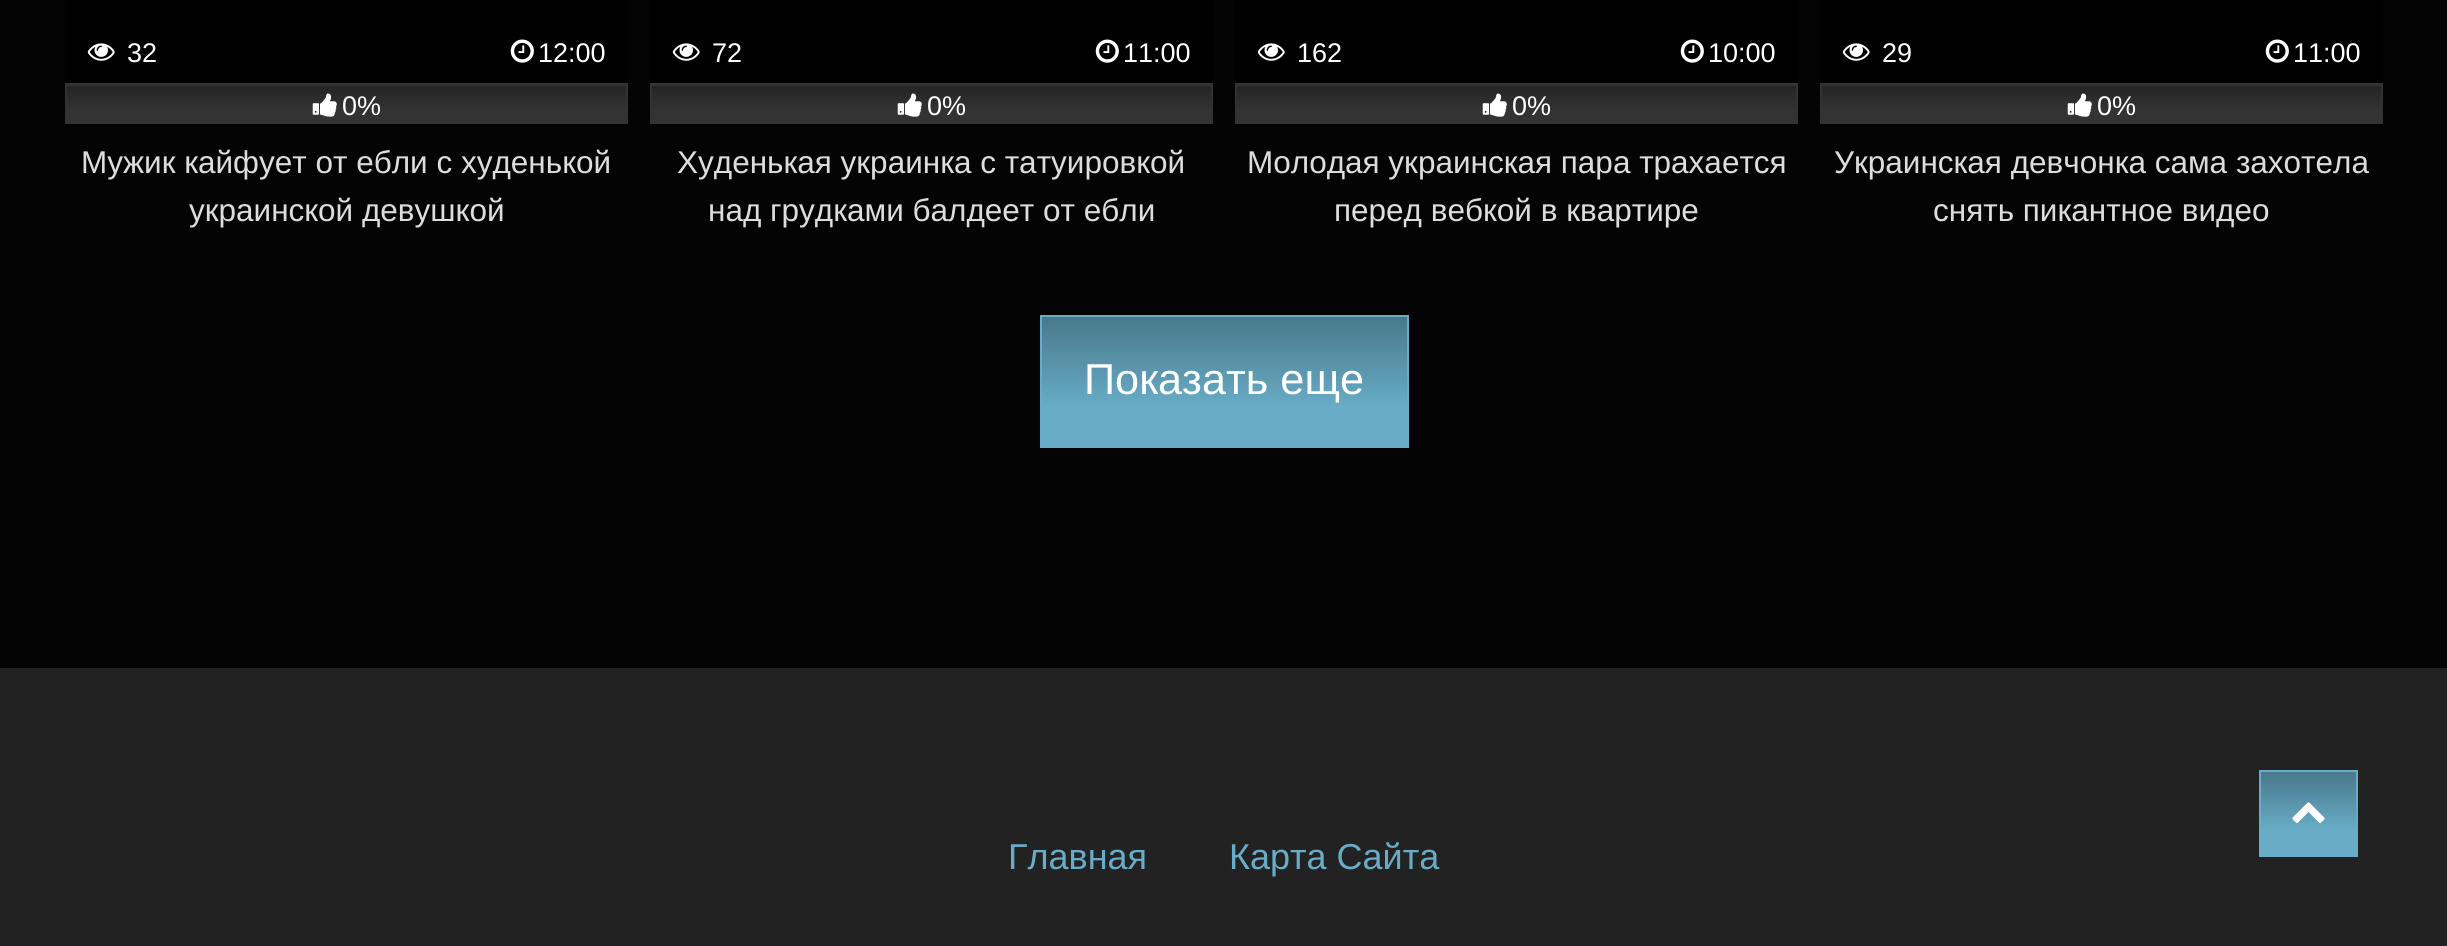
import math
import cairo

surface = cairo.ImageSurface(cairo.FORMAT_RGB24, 2447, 946)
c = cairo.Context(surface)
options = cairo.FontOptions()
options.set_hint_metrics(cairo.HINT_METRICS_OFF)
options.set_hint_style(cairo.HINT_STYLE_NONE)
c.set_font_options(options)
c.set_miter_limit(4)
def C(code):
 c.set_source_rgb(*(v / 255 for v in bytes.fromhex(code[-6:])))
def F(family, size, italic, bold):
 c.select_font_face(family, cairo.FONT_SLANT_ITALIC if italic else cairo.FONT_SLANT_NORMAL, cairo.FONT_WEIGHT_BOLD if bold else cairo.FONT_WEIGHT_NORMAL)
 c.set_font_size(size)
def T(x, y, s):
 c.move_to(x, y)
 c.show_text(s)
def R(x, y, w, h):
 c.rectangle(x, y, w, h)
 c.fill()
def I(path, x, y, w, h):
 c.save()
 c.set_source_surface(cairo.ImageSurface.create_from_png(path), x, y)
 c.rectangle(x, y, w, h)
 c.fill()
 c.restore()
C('040404')
c.paint()
C('000000')
R(65,0,563,83)
I('1.png',87,43,28,18)
F('Liberation Sans',27,0,0)
C('ffffff')
T(127,62,'32')
I('2.png',510,39,24,24)
T(538,62,'12:00')
C('333333')
R(67,85,559,1)
gradient = cairo.LinearGradient(347,85,347,122)
gradient.add_color_stop_rgba(0,0.141,0.141,0.141,1)
gradient.add_color_stop_rgba(.7,0.2,0.2,0.2,1)
c.set_source(gradient)
R(67,86,559,36)
c.rectangle(66,84,561,39)
C('333333')
c.stroke()
I('3.png',312,93,25,24)
C('ffffff')
T(342,115,'0%')
F('Liberation Sans',31.5,0,0)
C('dddddd')
T(81,173,'Мужик кайфует от ебли с худенькой')
T(189,221,'украинской девушкой')
C('000000')
R(650,0,563,83)
I('1.png',672,43,28,18)
F('Liberation Sans',27,0,0)
C('ffffff')
T(712,62,'72')
I('2.png',1095,39,24,24)
T(1123,62,'11:00')
C('333333')
R(652,85,559,1)
gradient = cairo.LinearGradient(932,85,932,122)
gradient.add_color_stop_rgba(0,0.141,0.141,0.141,1)
gradient.add_color_stop_rgba(.7,0.2,0.2,0.2,1)
c.set_source(gradient)
R(652,86,559,36)
c.rectangle(651,84,561,39)
C('333333')
c.stroke()
I('3.png',897,93,25,24)
C('ffffff')
T(927,115,'0%')
F('Liberation Sans',31.5,0,0)
C('dddddd')
T(677,173,'Худенькая украинка с татуировкой')
T(708,221,'над грудками балдеет от ебли')
C('000000')
R(1235,0,563,83)
I('1.png',1257,43,28,18)
F('Liberation Sans',27,0,0)
C('ffffff')
T(1297,62,'162')
I('2.png',1680,39,24,24)
T(1708,62,'10:00')
C('333333')
R(1237,85,559,1)
gradient = cairo.LinearGradient(1517,85,1517,122)
gradient.add_color_stop_rgba(0,0.141,0.141,0.141,1)
gradient.add_color_stop_rgba(.7,0.2,0.2,0.2,1)
c.set_source(gradient)
R(1237,86,559,36)
c.rectangle(1236,84,561,39)
C('333333')
c.stroke()
I('3.png',1482,93,25,24)
C('ffffff')
T(1512,115,'0%')
F('Liberation Sans',31.5,0,0)
C('dddddd')
T(1247,173,'Молодая украинская пара трахается')
T(1334,221,'перед вебкой в квартире')
C('000000')
R(1820,0,563,83)
I('1.png',1842,43,28,18)
F('Liberation Sans',27,0,0)
C('ffffff')
T(1882,62,'29')
I('2.png',2265,39,24,24)
T(2293,62,'11:00')
C('333333')
R(1822,85,559,1)
gradient = cairo.LinearGradient(2102,85,2102,122)
gradient.add_color_stop_rgba(0,0.141,0.141,0.141,1)
gradient.add_color_stop_rgba(.7,0.2,0.2,0.2,1)
c.set_source(gradient)
R(1822,86,559,36)
c.rectangle(1821,84,561,39)
C('333333')
c.stroke()
I('3.png',2067,93,25,24)
C('ffffff')
T(2097,115,'0%')
F('Liberation Sans',31.5,0,0)
C('dddddd')
T(1834,173,'Украинская девчонка сама захотела')
T(1933,221,'снять пикантное видео')
gradient = cairo.LinearGradient(1224,317,1224,446)
gradient.add_color_stop_rgba(0,0.286,0.471,0.545,1)
gradient.add_color_stop_rgba(.7,0.408,0.675,0.78,1)
c.set_source(gradient)
R(1042,317,365,129)
c.rectangle(1041,316,367,131)
C('68acc7')
c.stroke()
F('Liberation Sans',43.25,0,0)
C('ffffff')
T(1084,394,'Показать еще')
C('222222')
R(0,668,2447,278)
F('Liberation Sans',36,0,0)
C('68acc7')
T(1008,869,'Главная')
T(1229,869,'Карта Сайта')
gradient = cairo.LinearGradient(2309,772,2309,855)
gradient.add_color_stop_rgba(0,0.286,0.471,0.545,1)
gradient.add_color_stop_rgba(.7,0.408,0.675,0.78,1)
c.set_source(gradient)
R(2261,772,95,83)
c.rectangle(2260,771,97,85)
C('68acc7')
c.stroke()
I('4.png',2292,802,33,21)
surface.write_to_png('o.png')
